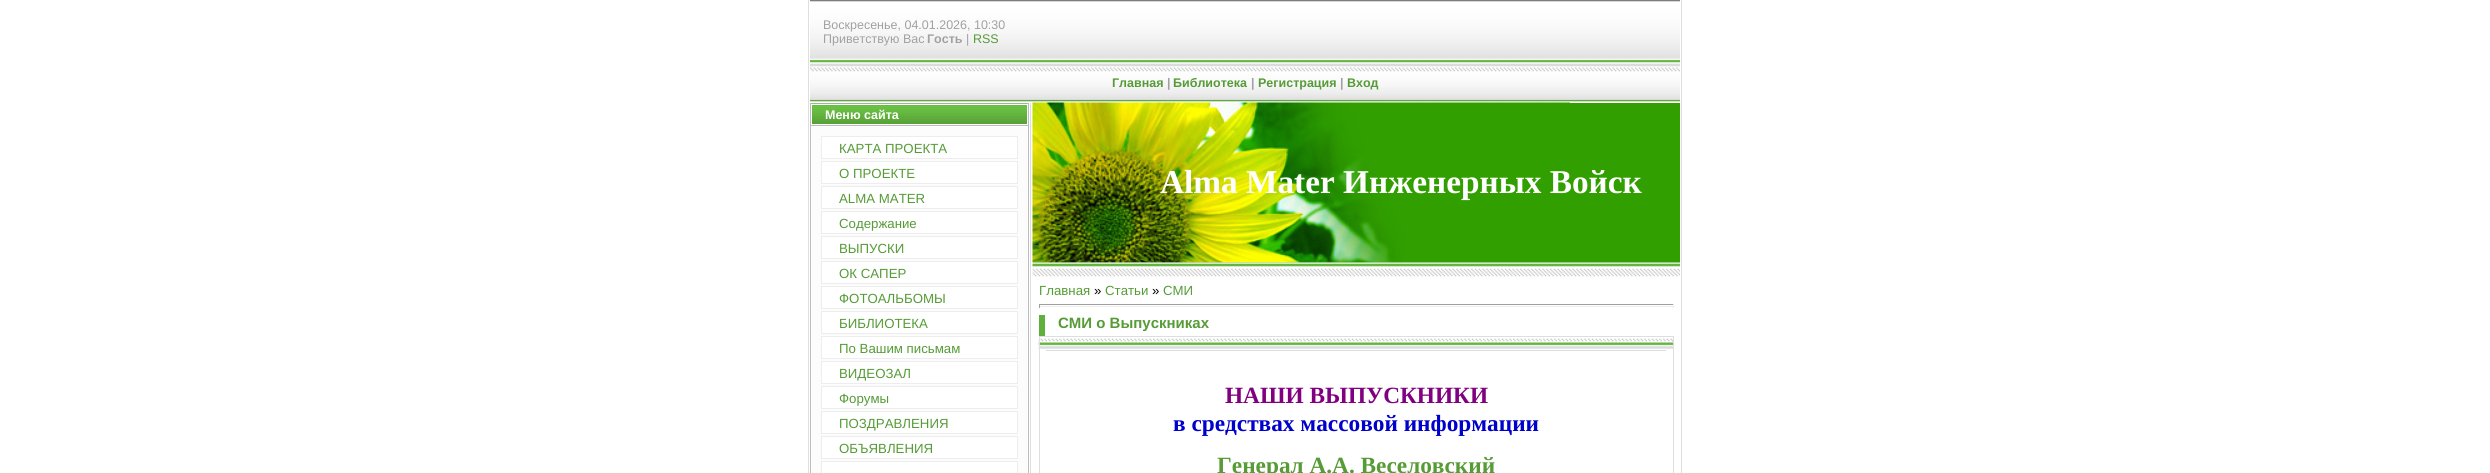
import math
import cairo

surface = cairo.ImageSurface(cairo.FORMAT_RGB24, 2490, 473)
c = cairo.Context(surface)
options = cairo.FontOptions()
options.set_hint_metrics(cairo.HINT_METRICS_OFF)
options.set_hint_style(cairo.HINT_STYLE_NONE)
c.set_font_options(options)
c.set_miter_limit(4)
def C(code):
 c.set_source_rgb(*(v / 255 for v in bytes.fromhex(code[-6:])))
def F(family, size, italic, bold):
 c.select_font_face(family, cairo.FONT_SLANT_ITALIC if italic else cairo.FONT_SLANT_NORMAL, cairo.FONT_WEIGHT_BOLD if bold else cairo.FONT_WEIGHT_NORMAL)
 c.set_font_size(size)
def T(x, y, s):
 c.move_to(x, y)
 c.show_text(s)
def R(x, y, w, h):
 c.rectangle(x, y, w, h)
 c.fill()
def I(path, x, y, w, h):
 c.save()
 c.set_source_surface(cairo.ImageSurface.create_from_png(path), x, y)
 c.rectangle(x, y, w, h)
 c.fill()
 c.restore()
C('ffffff')
c.paint()
C('dedede')
R(1681,0,1,473)
R(808,0,1,473)
I('1.png',810,0,870,63)
F('Liberation Sans',12.5,0,0)
C('a1a1a1')
T(823,29,'Воскресенье, 04.01.2026, 10:30')
T(823,43,'Приветствую Вас')
F('Liberation Sans',12.5,0,1)
T(927,43,'Гость')
F('Liberation Sans',12.5,0,0)
T(966,43,'|')
C('559b36')
T(973,43,'RSS')
I('2.png',810,62,870,40)
F('Liberation Sans',12.5,0,1)
T(1112,87,'Главная')
C('a1a1a1')
T(1167,87,'|')
C('559b36')
T(1173,87,'Библиотека')
C('a1a1a1')
T(1251,87,'|')
C('559b36')
T(1258,87,'Регистрация')
C('a1a1a1')
T(1340,87,'|')
C('559b36')
T(1347,87,'Вход')
C('bcbcbc')
R(810,103,219,370)
I('3.png',811,103,217,21)
c.rectangle(811.5,104.5,216,20)
C('ffffff')
c.set_line_width(1)
c.stroke()
T(825,119,'Меню сайта')
C('fcfcfc')
c.rectangle(811.5,126.5,216,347)
c.fill_preserve()
C('ffffff')
c.stroke()
c.rectangle(821.5,136.5,196,22)
c.fill_preserve()
C('ededed')
c.stroke()
F('Liberation Sans',13.25,0,0)
C('559b36')
T(839,153,'КАРТА ПРОЕКТА')
C('ffffff')
c.rectangle(821.5,161.5,196,22)
c.fill_preserve()
C('ededed')
c.stroke()
C('559b36')
T(839,178,'О ПРОЕКТЕ')
C('ffffff')
c.rectangle(821.5,186.5,196,22)
c.fill_preserve()
C('ededed')
c.stroke()
C('559b36')
T(839,203,'ALMA MATER')
C('ffffff')
c.rectangle(821.5,211.5,196,22)
c.fill_preserve()
C('ededed')
c.stroke()
C('559b36')
T(839,228,'Содержание')
C('ffffff')
c.rectangle(821.5,236.5,196,22)
c.fill_preserve()
C('ededed')
c.stroke()
C('559b36')
T(839,253,'ВЫПУСКИ')
C('ffffff')
c.rectangle(821.5,261.5,196,22)
c.fill_preserve()
C('ededed')
c.stroke()
C('559b36')
T(839,278,'ОК САПЕР')
C('ffffff')
c.rectangle(821.5,286.5,196,22)
c.fill_preserve()
C('ededed')
c.stroke()
C('559b36')
T(839,303,'ФОТОАЛЬБОМЫ')
C('ffffff')
c.rectangle(821.5,311.5,196,22)
c.fill_preserve()
C('ededed')
c.stroke()
C('559b36')
T(839,328,'БИБЛИОТЕКА')
C('ffffff')
c.rectangle(821.5,336.5,196,22)
c.fill_preserve()
C('ededed')
c.stroke()
C('559b36')
T(839,353,'По Вашим письмам')
C('ffffff')
c.rectangle(821.5,361.5,196,22)
c.fill_preserve()
C('ededed')
c.stroke()
C('559b36')
T(839,378,'ВИДЕОЗАЛ')
C('ffffff')
c.rectangle(821.5,386.5,196,22)
c.fill_preserve()
C('ededed')
c.stroke()
C('559b36')
T(839,403,'Форумы')
C('ffffff')
c.rectangle(821.5,411.5,196,22)
c.fill_preserve()
C('ededed')
c.stroke()
C('559b36')
T(839,428,'ПОЗДРАВЛЕНИЯ')
C('ffffff')
c.rectangle(821.5,436.5,196,22)
c.fill_preserve()
C('ededed')
c.stroke()
C('559b36')
T(839,453,'ОБЪЯВЛЕНИЯ')
C('ffffff')
c.rectangle(821.5,461.5,196,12)
c.fill_preserve()
C('ededed')
c.stroke()
C('dedede')
R(1030,103,1,370)
C('319f00')
R(1033,103,647,160)
I('4.png',1032,102,538,161)
F('Liberation Serif',33.3,0,1)
C('ffffff')
T(1160,193,'Alma Mater Инженерных Войск')
I('5.png',1032,262,648,15)
F('Liberation Sans',13.25,0,0)
C('559b36')
T(1039,295,'Главная')
C('000000')
T(1094,295,'»')
C('559b36')
T(1105,295,'Статьи')
C('000000')
T(1152,295,'»')
C('559b36')
T(1163,295,'СМИ')
C('9f9f9f')
R(1039,304,635,1)
C('eeeeee')
R(1673,304,1,4)
R(1039,306,635,1)
C('9f9f9f')
R(1039,304,1,4)
C('60b03d')
R(1039,315,6,21)
F('Liberation Sans',15,0,1)
C('559b36')
T(1058,328,'СМИ о Выпускниках')
I('6.png',1038,338,635,11)
c.rectangle(1039.5,336.5,634,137)
C('dedede')
c.stroke()
C('dddddd')
R(1046,350,620,1)
F('Liberation Serif',23.3,0,1)
C('800080')
T(1225,403,'НАШИ ВЫПУСКНИКИ')
C('0000cd')
T(1173,431,'в средствах массовой информации')
C('559b36')
T(1217,473,'Генерал А.А. Веселовский')
surface.write_to_png('o.png')
